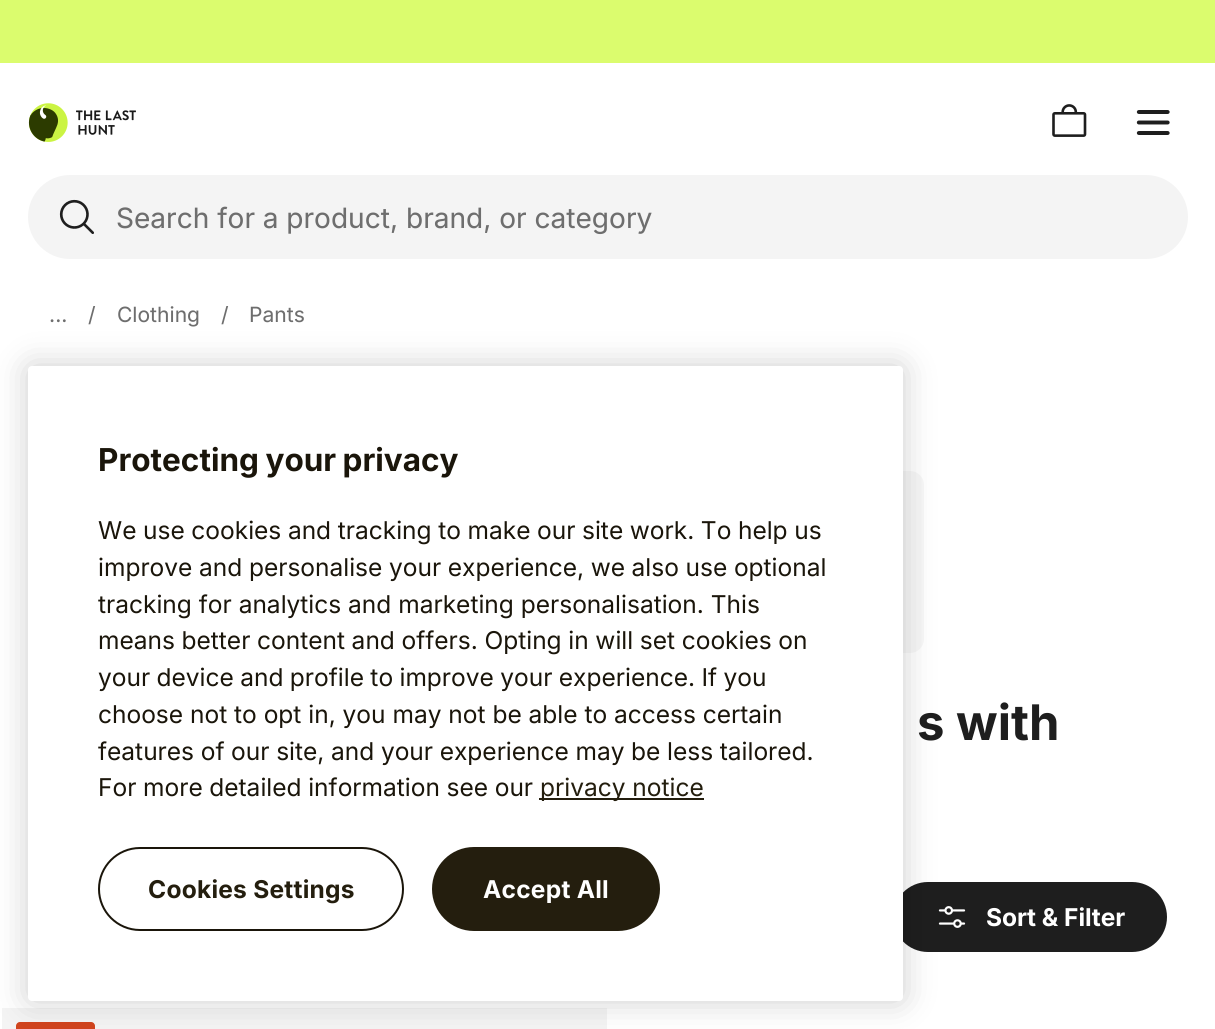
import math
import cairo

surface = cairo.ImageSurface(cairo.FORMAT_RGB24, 1215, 1029)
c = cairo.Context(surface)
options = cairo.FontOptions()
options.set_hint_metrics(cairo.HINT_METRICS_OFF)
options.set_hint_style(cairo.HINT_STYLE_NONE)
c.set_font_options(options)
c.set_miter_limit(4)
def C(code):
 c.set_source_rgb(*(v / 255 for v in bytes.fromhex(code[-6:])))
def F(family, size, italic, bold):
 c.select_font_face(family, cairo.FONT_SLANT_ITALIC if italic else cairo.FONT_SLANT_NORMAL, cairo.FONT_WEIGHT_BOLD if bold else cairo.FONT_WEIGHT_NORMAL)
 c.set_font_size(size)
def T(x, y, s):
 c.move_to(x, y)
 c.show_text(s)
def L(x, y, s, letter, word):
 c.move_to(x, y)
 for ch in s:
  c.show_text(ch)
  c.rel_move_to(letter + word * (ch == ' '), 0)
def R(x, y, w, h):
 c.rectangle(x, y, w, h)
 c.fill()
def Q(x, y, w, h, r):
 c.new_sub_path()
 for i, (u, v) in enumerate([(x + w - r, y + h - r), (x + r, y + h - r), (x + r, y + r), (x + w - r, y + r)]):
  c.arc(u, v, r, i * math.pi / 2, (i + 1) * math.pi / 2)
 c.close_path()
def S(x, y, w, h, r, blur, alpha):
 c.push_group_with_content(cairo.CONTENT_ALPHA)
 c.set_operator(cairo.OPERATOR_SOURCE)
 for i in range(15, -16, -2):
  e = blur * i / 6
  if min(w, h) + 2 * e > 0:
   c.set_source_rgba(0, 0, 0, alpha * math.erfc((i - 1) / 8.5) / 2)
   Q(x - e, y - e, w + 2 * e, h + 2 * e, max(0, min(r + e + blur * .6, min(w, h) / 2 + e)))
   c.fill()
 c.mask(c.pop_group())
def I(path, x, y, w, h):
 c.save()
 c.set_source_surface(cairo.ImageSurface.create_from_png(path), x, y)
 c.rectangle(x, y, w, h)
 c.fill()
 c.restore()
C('ffffff')
c.paint()
C('dbfc6e')
R(0,0,1215,63)
I('1.png',28,103,108,39)
I('2.png',1052,104,35,33)
I('3.png',1136,110,34,25)
C('f4f4f4')
Q(28,175,1160,84,42)
c.fill()
I('4.png',59,199,35,35)
F('Inter',28,0,0)
C('6e6e6e')
T(116,228,'Search for a product, brand, or category')
F('Inter',21,0,0)
T(49,322,'...')
T(88,322,'/')
T(117,322,'Clothing')
T(221,322,'/')
T(249,322,'Pants')
C('f7f7f7')
Q(651,471,273,182,14)
c.fill()
F('Inter',49,0,1)
C('1e1e1e')
T(917,740,'s with')
Q(893,882,274,70,35)
c.fill()
I('5.png',938,906,28,22)
F('Inter',24.5,0,1)
C('ffffff')
T(986,926,'Sort & Filter')
C('f4f4f4')
R(2,1008,605,21)
C('d1441d')
Q(16,1022,79,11,4)
c.fill()
C('000000')
S(28,366,875,635,4,16,.2)
C('ffffff')
Q(28,366,875,635,4)
c.fill()
F('Inter',31.5,0,1)
C('1a150a')
L(98,471,'Protecting your privacy',0,-1)
F('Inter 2',24.5,0,0)
L(98,539,'We use cookies and tracking to make our site work. To help us',0,-.3)
L(98,576,'improve and personalise your experience, we also use optional',0,-.25)
T(98,613,'tracking for analytics and marketing personalisation. This')
L(98,649,'means better content and offers. Opting in will set cookies on',0,-.25)
L(98,686,'your device and profile to improve your experience. If you',0,-.5)
T(98,723,'choose not to opt in, you may not be able to access certain')
L(98,760,'features of our site, and your experience may be less tailored.',0,-.25)
L(98,796,'For more detailed information see our',0,-.25)
C('241e0e')
R(539,798,165,2)
T(540,796,'privacy notice')
Q(99,848,304,82,41)
C('1a150a')
c.stroke()
F('Inter',24.5,0,1)
C('241e0e')
L(148,898,'Cookies Settings',.25,0)
Q(433,848,226,82,41)
c.fill_preserve()
c.stroke()
C('ffffff')
L(483,898,'Accept All',.25,0)
surface.write_to_png('o.png')
